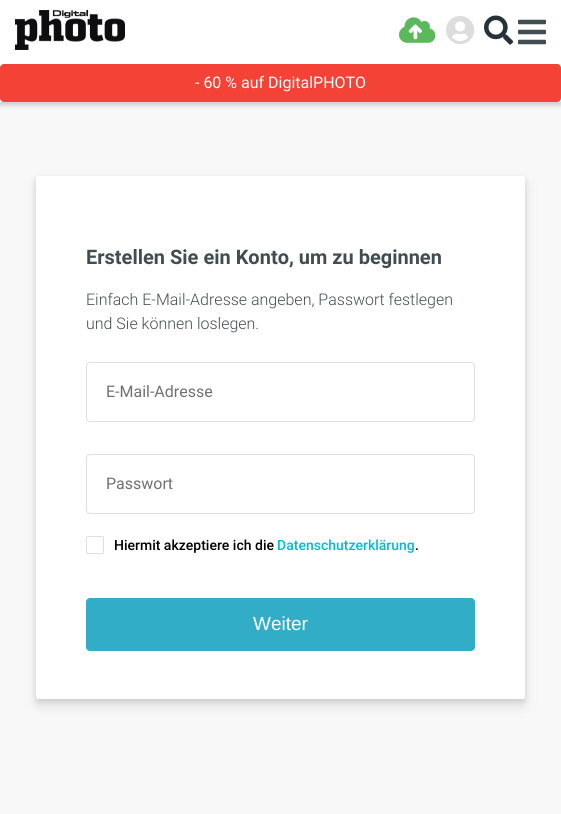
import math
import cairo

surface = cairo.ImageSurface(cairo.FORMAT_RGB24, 561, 814)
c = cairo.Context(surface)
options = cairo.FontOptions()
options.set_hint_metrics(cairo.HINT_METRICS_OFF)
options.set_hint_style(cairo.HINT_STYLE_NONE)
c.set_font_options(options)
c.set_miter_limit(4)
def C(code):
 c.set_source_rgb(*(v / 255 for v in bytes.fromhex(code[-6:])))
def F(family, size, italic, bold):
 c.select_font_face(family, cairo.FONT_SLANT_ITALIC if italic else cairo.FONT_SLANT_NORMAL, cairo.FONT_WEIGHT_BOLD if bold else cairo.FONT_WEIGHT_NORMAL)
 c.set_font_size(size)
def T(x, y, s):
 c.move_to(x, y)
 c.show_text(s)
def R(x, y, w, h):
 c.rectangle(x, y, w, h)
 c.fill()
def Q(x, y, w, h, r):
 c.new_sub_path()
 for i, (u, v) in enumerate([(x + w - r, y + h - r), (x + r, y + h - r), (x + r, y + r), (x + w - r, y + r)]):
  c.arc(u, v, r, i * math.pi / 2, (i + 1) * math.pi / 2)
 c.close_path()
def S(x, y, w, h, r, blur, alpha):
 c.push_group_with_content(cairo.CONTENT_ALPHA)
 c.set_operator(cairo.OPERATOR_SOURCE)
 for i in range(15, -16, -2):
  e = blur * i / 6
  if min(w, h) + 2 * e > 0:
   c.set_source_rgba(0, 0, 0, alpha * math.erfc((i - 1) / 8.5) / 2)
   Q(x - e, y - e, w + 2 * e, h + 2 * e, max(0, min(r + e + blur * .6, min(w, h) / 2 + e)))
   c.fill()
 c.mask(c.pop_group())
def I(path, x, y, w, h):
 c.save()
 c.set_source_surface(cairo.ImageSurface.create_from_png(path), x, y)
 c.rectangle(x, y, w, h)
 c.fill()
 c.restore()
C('f8f8f8')
c.paint()
C('000000')
S(0,2,561,103,0,2.5,.2)
C('ffffff')
R(0,0,561,102)
C('cfd8dc')
R(0,102,561,1)
I('1.png',15,10,110,40)
I('2.png',399,17,37,26)
I('3.png',446,16,29,29)
I('4.png',484,15,30,30)
I('5.png',518,19,28,26)
C('f44336')
Q(.5,64.5,560,37,3.5)
c.fill_preserve()
c.set_line_width(1)
c.stroke()
F('Roboto',16,0,0)
C('ffffff')
T(195,88,'- 60 % auf DigitalPHOTO')
C('000000')
S(36,179,489,523,2,3,.12)
C('3c4257')
S(36,183,489,523,2,7,.12)
C('ffffff')
Q(36,176,489,523,2)
c.fill()
F('Roboto',20,0,1)
C('424d52')
T(86,264,'Erstellen Sie ein Konto, um zu beginnen')
F('Roboto Light',16,0,0)
T(86,305,'Einfach E-Mail-Adresse angeben, Passwort festlegen')
T(86,329,'und Sie können loslegen.')
Q(86.5,362.5,388,59,3.5)
C('dcdfe6')
c.stroke()
F('Roboto',16,0,0)
C('707070')
T(106,397,'E-Mail-Adresse')
Q(86.5,454.5,388,59,3.5)
C('dcdfe6')
c.stroke()
C('707070')
T(106,489,'Passwort')
Q(86.5,536.5,17,17,1.5)
C('dcdfe6')
c.stroke()
F('Roboto Medium',14,0,0)
C('000000')
T(114,550,'Hiermit akzeptiere ich die')
C('00bcd4')
T(277,550,'Datenschutzerklärung')
C('000000')
T(415,550,'.')
C('31adc8')
Q(86.5,598.5,388,52,3.5)
c.fill_preserve()
c.stroke()
F('Liberation Sans',19,0,0)
C('ffffff')
T(253,630,'Weiter')
surface.write_to_png('o.png')
